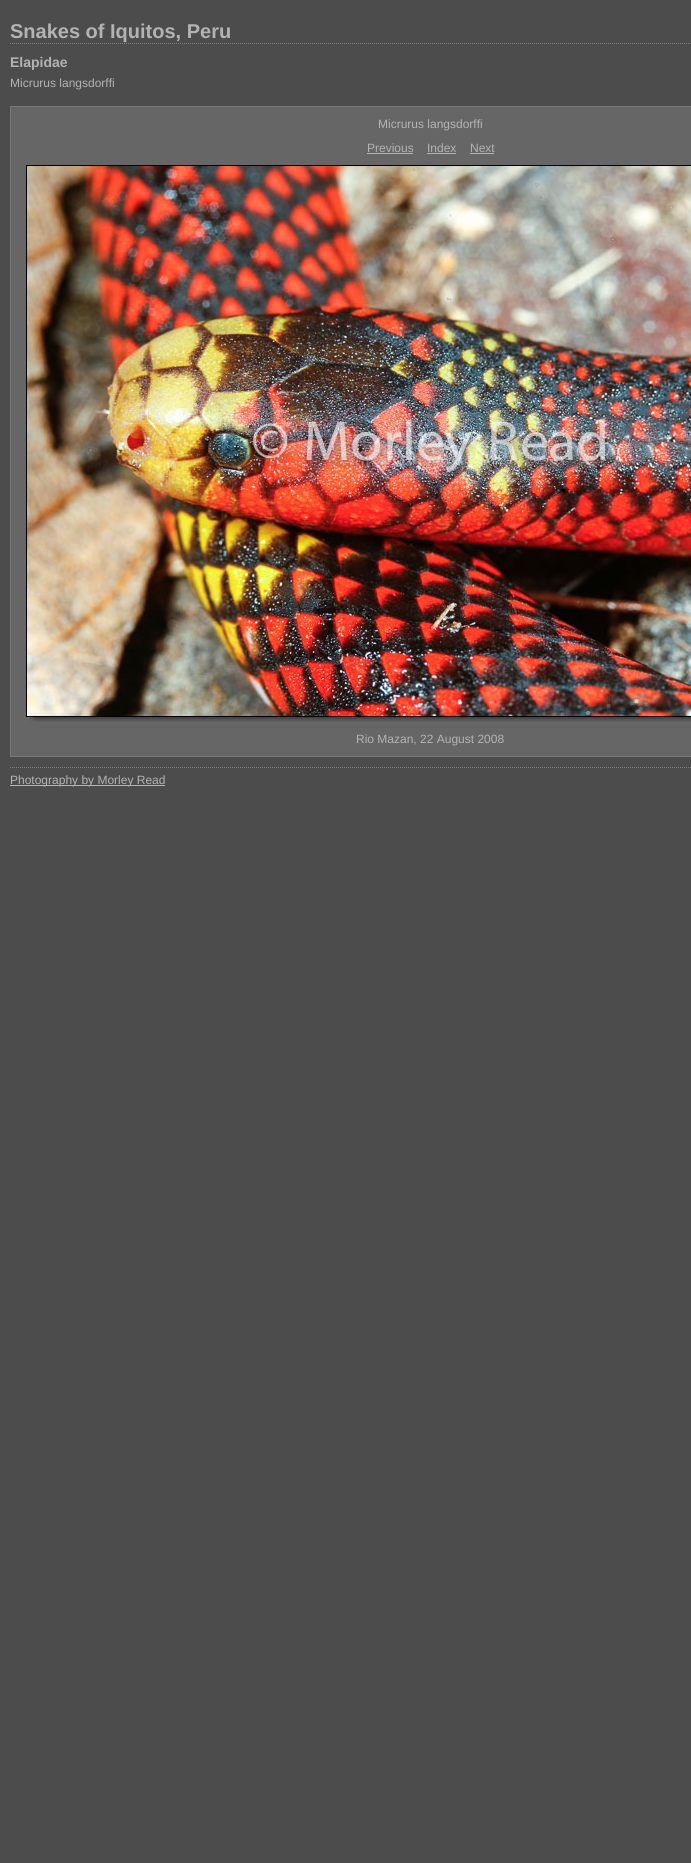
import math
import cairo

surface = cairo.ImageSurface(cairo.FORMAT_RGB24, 691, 1863)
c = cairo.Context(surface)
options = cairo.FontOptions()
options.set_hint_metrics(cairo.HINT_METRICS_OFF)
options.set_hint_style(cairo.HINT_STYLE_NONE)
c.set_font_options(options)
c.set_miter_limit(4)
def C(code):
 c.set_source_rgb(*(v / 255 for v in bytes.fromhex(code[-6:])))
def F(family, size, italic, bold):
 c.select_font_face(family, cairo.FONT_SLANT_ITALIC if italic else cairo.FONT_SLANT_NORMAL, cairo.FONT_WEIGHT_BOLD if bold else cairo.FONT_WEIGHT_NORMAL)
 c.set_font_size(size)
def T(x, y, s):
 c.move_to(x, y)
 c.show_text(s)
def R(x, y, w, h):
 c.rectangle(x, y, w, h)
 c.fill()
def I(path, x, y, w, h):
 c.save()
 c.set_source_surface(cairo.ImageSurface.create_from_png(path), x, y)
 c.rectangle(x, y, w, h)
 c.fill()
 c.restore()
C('4c4c4c')
c.paint()
c.new_path()
c.move_to(10,43.5)
c.line_to(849,43.5)
C('7f7f7f')
c.set_line_width(1)
c.set_dash([1,1])
c.stroke()
F('Liberation Sans',20,0,1)
C('b3b3b3')
T(10,38,'Snakes of Iquitos, Peru')
F('Liberation Sans',14,0,1)
T(10,67,'Elapidae')
F('Liberation Sans',12,0,0)
T(10,87,'Micrurus langsdorffi')
c.new_path()
c.move_to(10,767.5)
c.line_to(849,767.5)
C('7f7f7f')
c.stroke()
C('666666')
c.rectangle(10.5,106.5,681,650)
c.fill_preserve()
C('787878')
c.set_dash([])
c.stroke()
C('b3b3b3')
T(378,128,'Micrurus langsdorffi')
T(367,152,'Previous')
R(367,153,46,1)
T(427,152,'Index')
R(427,153,29,1)
T(470,152,'Next')
R(470,153,24,1)
I('1.png',36,717,655,5)
c.rectangle(26.5,165.5,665,551)
C('000000')
c.stroke()
I('2.png',27,166,664,550)
I('3.png',29,717,7,5)
C('b3b3b3')
T(356,743,'Rio Mazan, 22 August 2008')
R(10,785,155,1)
T(10,784,'Photography by Morley Read')
surface.write_to_png('o.png')
